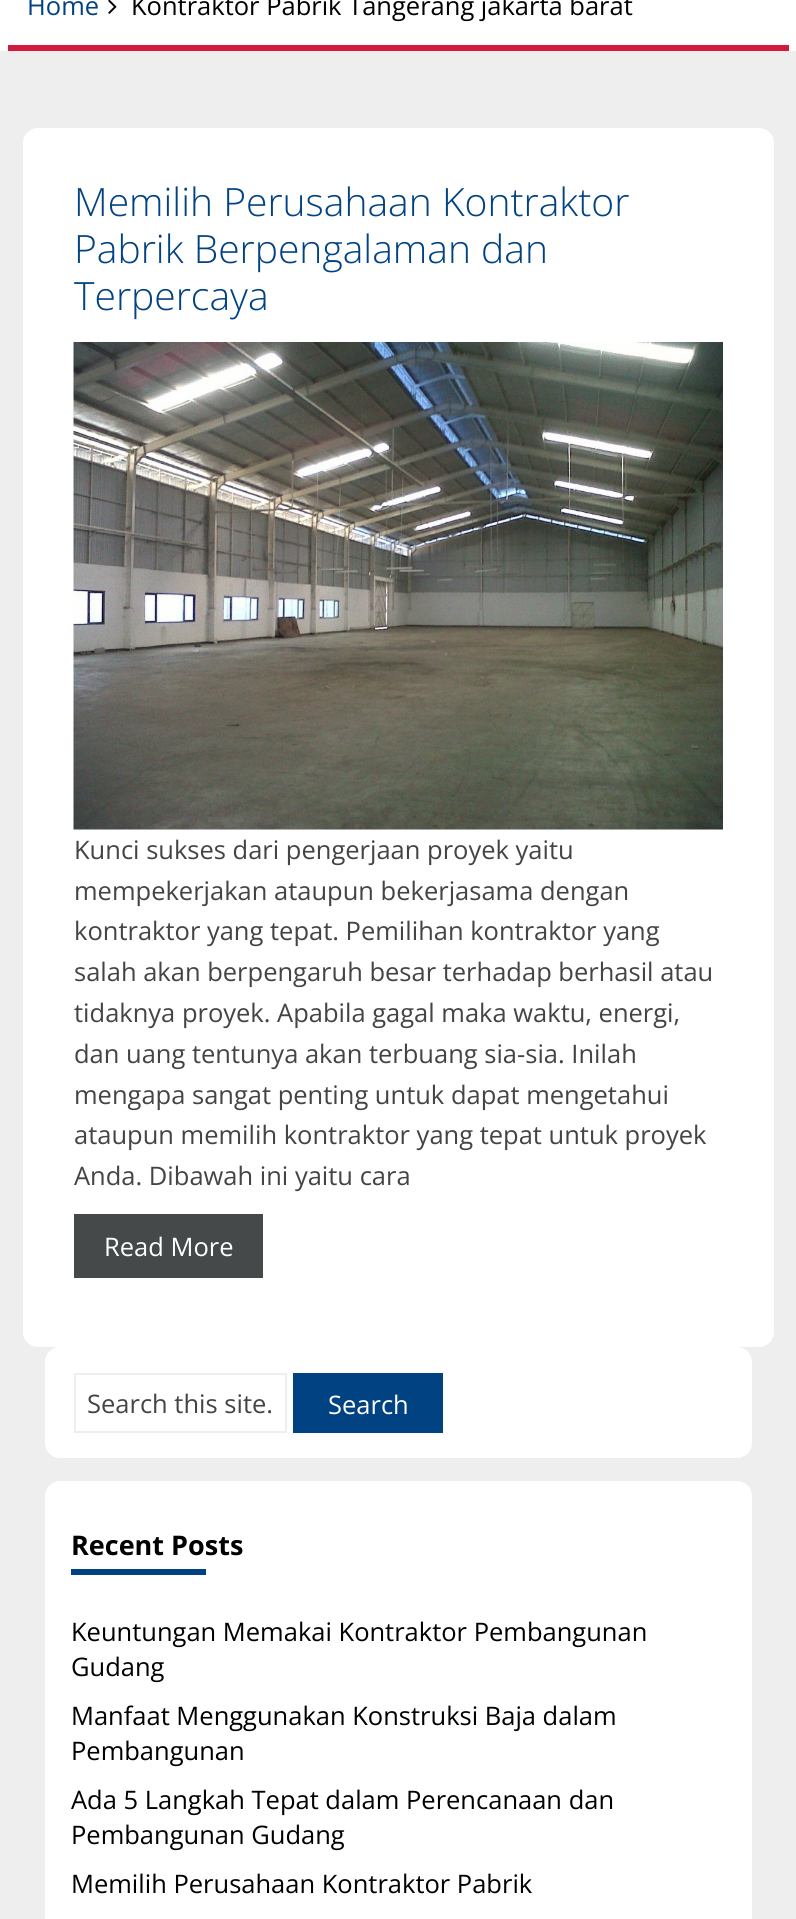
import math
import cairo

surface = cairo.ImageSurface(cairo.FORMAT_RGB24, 796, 1919)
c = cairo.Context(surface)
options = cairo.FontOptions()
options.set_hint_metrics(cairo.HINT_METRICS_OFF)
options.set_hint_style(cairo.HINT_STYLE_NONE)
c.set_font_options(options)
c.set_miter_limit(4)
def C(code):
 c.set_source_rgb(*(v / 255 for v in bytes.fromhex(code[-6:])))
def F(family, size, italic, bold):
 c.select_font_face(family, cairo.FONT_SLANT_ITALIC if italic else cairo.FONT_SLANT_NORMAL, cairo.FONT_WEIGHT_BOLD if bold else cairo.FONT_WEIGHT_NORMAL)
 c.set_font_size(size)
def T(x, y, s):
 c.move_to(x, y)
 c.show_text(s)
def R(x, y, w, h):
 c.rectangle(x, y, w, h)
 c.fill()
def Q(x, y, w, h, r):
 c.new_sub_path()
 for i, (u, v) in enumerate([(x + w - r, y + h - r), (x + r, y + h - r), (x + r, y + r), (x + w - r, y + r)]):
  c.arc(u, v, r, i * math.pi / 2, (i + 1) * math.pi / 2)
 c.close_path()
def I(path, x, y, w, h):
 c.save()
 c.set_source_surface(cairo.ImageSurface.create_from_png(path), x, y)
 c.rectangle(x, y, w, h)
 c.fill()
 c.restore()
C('ffffff')
c.paint()
C('d31a3c')
R(8,45,781,6)
F('Open Sans',25.5,0,0)
C('014282')
T(27,15,'Home')
I('1.png',108,0,9,14)
C('000000')
T(131,15,'Kontraktor Pabrik Tangerang jakarta barat')
C('eeeeee')
R(0,51,796,1868)
C('ffffff')
Q(23,128,751,1219,15)
c.fill()
F('Open Sans Light',39,0,0)
C('014282')
T(74,216,'Memilih Perusahaan Kontraktor')
T(74,263,'Pabrik Berpengalaman dan')
T(74,310,'Terpercaya')
I('2.png',73,342,650,488)
F('Open Sans',25.5,0,0)
C('444444')
T(74,859,'Kunci sukses dari pengerjaan proyek yaitu')
T(74,900,'mempekerjakan ataupun bekerjasama dengan')
T(74,940,'kontraktor yang tepat. Pemilihan kontraktor yang')
T(74,981,'salah akan berpengaruh besar terhadap berhasil atau')
T(74,1022,'tidaknya proyek. Apabila gagal maka waktu, energi,')
T(74,1063,'dan uang tentunya akan terbuang sia-sia. Inilah')
T(74,1104,'mengapa sangat penting untuk dapat mengetahui')
T(74,1144,'ataupun memilih kontraktor yang tepat untuk proyek')
T(74,1185,'Anda. Dibawah ini yaitu cara')
C('45494a')
R(74,1214,189,64)
C('ffffff')
T(104,1256,'Read More')
Q(45,1347,707,111,15)
c.fill()
c.rectangle(75,1374,211,58)
C('eeeeee')
c.stroke()
C('444444')
T(87,1413,'Search this site.')
C('014282')
R(293,1373,150,60)
C('ffffff')
T(328,1414,'Search')
Q(45,1481,707,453,15)
c.fill()
F('Open Sans',27,0,1)
C('000000')
T(71,1555,'Recent Posts')
C('014282')
R(71,1569,135,6)
F('Open Sans',25.5,0,0)
C('000000')
T(71,1641,'Keuntungan Memakai Kontraktor Pembangunan')
T(71,1676,'Gudang')
T(71,1725,'Manfaat Menggunakan Konstruksi Baja dalam')
T(71,1760,'Pembangunan')
T(71,1809,'Ada 5 Langkah Tepat dalam Perencanaan dan')
T(71,1844,'Pembangunan Gudang')
T(71,1893,'Memilih Perusahaan Kontraktor Pabrik')
surface.write_to_png('o.png')
